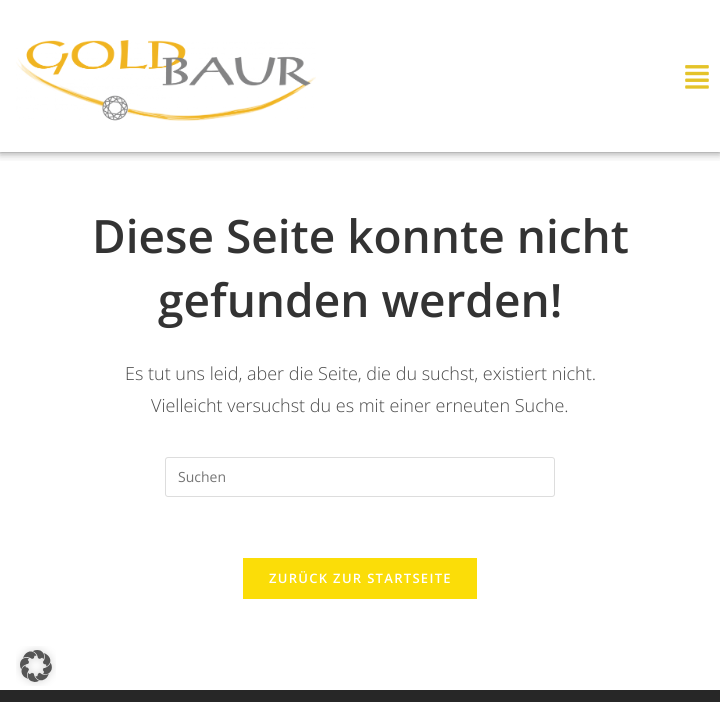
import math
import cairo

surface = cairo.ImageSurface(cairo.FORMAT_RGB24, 720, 702)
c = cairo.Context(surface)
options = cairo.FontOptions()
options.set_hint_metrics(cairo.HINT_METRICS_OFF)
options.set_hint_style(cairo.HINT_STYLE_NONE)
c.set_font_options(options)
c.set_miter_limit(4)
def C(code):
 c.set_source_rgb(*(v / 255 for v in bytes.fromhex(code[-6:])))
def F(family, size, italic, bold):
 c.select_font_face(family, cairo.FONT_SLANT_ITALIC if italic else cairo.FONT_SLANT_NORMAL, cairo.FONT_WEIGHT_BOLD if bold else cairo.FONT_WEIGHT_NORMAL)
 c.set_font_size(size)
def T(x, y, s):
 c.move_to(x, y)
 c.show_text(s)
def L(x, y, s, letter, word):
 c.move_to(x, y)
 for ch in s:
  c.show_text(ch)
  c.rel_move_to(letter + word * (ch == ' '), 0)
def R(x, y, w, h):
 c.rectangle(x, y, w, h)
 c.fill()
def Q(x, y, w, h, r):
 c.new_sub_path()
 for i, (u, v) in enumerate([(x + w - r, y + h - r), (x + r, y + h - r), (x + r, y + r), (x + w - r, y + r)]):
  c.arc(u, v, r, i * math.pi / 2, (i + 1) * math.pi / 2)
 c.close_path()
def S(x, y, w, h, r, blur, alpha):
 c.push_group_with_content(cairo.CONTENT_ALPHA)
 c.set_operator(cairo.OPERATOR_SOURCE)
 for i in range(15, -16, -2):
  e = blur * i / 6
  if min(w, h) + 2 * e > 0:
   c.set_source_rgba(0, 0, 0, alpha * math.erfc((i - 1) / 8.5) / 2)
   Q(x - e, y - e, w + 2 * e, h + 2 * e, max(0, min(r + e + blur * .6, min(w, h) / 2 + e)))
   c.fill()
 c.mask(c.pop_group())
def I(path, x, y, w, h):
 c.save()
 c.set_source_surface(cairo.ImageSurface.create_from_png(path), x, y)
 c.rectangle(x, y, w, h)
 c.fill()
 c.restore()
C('ffffff')
c.paint()
C('f1f1f1')
R(0,152,720,1)
c.save()
c.rectangle(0,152,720,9)
c.clip()
C('000000')
S(0,0,720,152,0,5,.5)
c.restore()
I('1.png',16,40,300,81)
I('2.png',685,65,24,24)
F('Open Sans SemiBold',46,0,0)
C('333333')
T(92,253,'Diese Seite konnte nicht')
T(158,317,'gefunden werden!')
F('Open Sans Light',18,0,0)
C('4a4a4a')
T(125,380,'Es tut uns leid, aber die Seite, die du suchst, existiert nicht.')
T(151,412,'Vielleicht versuchst du es mit einer erneuten Suche.')
Q(165.5,457.5,389,39,2.5)
C('dddddd')
c.set_line_width(1)
c.stroke()
F('Open Sans',14,0,0)
C('757575')
T(178,482,'Suchen')
C('fbdd08')
R(243,558,234,41)
F('Open Sans SemiBold',13,0,0)
C('ffffff')
L(269,583,'ZURÜCK ZUR STARTSEITE',1.3,0)
C('272727')
R(0,690,720,12)
I('3.png',16,646,40,40)
surface.write_to_png('o.png')
